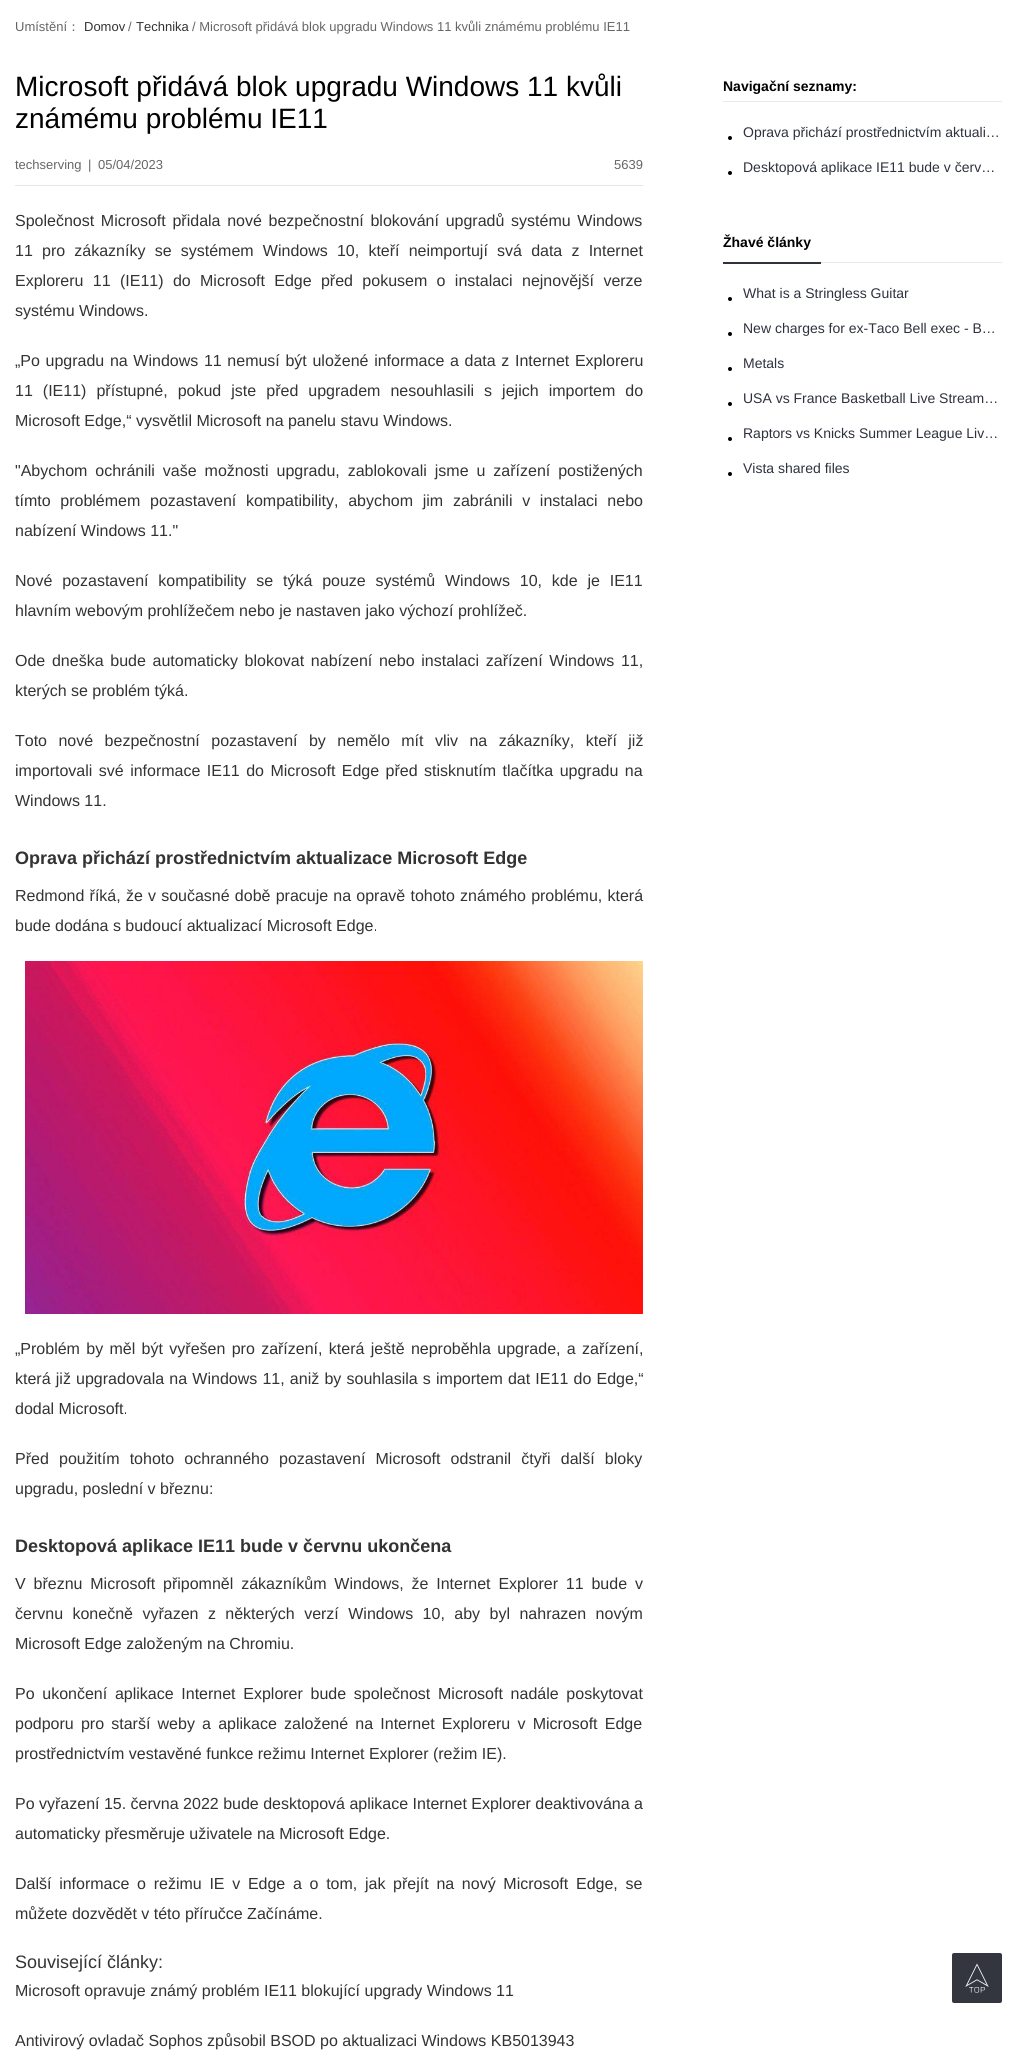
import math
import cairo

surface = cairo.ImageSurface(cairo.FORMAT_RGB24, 1017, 2059)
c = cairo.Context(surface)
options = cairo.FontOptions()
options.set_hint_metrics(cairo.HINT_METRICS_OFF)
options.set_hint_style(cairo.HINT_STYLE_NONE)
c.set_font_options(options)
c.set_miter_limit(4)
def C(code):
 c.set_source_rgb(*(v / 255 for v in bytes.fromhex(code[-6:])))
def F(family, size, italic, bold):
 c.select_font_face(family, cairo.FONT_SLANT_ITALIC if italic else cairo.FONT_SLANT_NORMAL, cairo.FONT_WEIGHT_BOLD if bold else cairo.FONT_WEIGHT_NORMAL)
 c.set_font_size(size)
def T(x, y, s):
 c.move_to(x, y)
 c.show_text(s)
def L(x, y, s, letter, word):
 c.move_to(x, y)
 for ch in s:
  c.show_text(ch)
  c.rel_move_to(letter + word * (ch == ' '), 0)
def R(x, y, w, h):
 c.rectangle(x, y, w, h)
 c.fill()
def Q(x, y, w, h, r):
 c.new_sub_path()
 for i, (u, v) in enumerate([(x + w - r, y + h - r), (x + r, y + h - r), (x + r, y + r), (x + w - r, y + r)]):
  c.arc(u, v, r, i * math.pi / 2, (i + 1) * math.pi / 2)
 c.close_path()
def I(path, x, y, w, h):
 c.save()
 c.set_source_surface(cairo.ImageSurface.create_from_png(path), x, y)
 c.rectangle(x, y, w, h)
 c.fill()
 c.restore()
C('ffffff')
c.paint()
F('Liberation Sans',13,0,0)
C('666666')
T(15,31,'Umístění')
F('WenQuanYi Zen Hei Medium',13,0,0)
T(67,31,'：')
F('Liberation Sans',13,0,0)
C('333333')
T(84,31,'Domov')
C('666666')
T(128,31,'/')
C('333333')
T(136,31,'Technika')
C('666666')
T(192,31,'/ Microsoft přidává blok upgradu Windows 11 kvůli známému problému IE11')
F('Liberation Sans',28,0,0)
C('000000')
T(15,96,'Microsoft přidává blok upgradu Windows 11 kvůli')
T(15,128,'známému problému IE11')
C('e6e6e6')
R(15,185,628,1)
F('Liberation Sans',13,0,0)
C('666666')
T(15,169,'techserving')
T(88,169,'|')
T(98,169,'05/04/2023')
T(614,169,'5639')
F('Liberation Sans',16,0,0)
C('333333')
L(15,226,'Společnost Microsoft přidala nové bezpečnostní blokování upgradů systému Windows',0,2.25)
L(15,256,'11 pro zákazníky se systémem Windows 10, kteří neimportují svá data z Internet',0,4.75)
L(15,286,'Exploreru 11 (IE11) do Microsoft Edge před pokusem o instalaci nejnovější verze',0,4.9)
T(15,316,'systému Windows.')
L(15,366,'„Po upgradu na Windows 11 nemusí být uložené informace a data z Internet Exploreru',0,1.2)
L(15,396,'11 (IE11) přístupné, pokud jste před upgradem nesouhlasili s jejich importem do',0,5.6)
T(15,426,'Microsoft Edge,“ vysvětlil Microsoft na panelu stavu Windows.')
L(15,476,'"Abychom ochránili vaše možnosti upgradu, zablokovali jsme u zařízení postižených',0,3.5)
L(15,506,'tímto problémem pozastavení kompatibility, abychom jim zabránili v instalaci nebo',0,5.25)
T(15,536,'nabízení Windows 11."')
L(15,586,'Nové pozastavení kompatibility se týká pouze systémů Windows 10, kde je IE11',0,5.4)
T(15,616,'hlavním webovým prohlížečem nebo je nastaven jako výchozí prohlížeč.')
L(15,666,'Ode dneška bude automaticky blokovat nabízení nebo instalaci zařízení Windows 11,',0,2.25)
T(15,696,'kterých se problém týká.')
L(15,746,'Toto nové bezpečnostní pozastavení by nemělo mít vliv na zákazníky, kteří již',0,7)
L(15,776,'importovali své informace IE11 do Microsoft Edge před stisknutím tlačítka upgradu na',0,2)
T(15,806,'Windows 11.')
F('Liberation Sans',18,0,1)
T(15,864,'Oprava přichází prostřednictvím aktualizace Microsoft Edge')
F('Liberation Sans',16,0,0)
L(15,901,'Redmond říká, že v současné době pracuje na opravě tohoto známého problému, která',0,.75)
T(15,931,'bude dodána s budoucí aktualizací Microsoft Edge.')
I('1.png',25,961,618,353)
L(15,1354,'„Problém by měl být vyřešen pro zařízení, která ještě neproběhla upgrade, a zařízení,',0,1.9)
L(15,1384,'která již upgradovala na Windows 11, aniž by souhlasila s importem dat IE11 do Edge,“',0,.75)
T(15,1414,'dodal Microsoft.')
L(15,1464,'Před použitím tohoto ochranného pozastavení Microsoft odstranil čtyři další bloky',0,5.75)
T(15,1494,'upgradu, poslední v březnu:')
F('Liberation Sans',18,0,1)
T(15,1552,'Desktopová aplikace IE11 bude v červnu ukončena')
F('Liberation Sans',16,0,0)
L(15,1589,'V březnu Microsoft připomněl zákazníkům Windows, že Internet Explorer 11 bude v',0,3.4)
L(15,1619,'červnu konečně vyřazen z některých verzí Windows 10, aby byl nahrazen novým',0,5)
T(15,1649,'Microsoft Edge založeným na Chromiu.')
L(15,1699,'Po ukončení aplikace Internet Explorer bude společnost Microsoft nadále poskytovat',0,3.25)
L(15,1729,'podporu pro starší weby a aplikace založené na Internet Exploreru v Microsoft Edge',0,2.75)
T(15,1759,'prostřednictvím vestavěné funkce režimu Internet Explorer (režim IE).')
T(15,1809,'Po vyřazení 15. června 2022 bude desktopová aplikace Internet Explorer deaktivována a')
T(15,1839,'automaticky přesměruje uživatele na Microsoft Edge.')
L(15,1889,'Další informace o režimu IE v Edge a o tom, jak přejít na nový Microsoft Edge, se',0,3.25)
T(15,1919,'můžete dozvědět v této příručce Začínáme.')
F('Liberation Sans',18,0,0)
T(15,1968,'Související články:')
F('Liberation Sans',16,0,0)
T(15,1996,'Microsoft opravuje známý problém IE11 blokující upgrady Windows 11')
T(15,2046,'Antivirový ovladač Sophos způsobil BSOD po aktualizaci Windows KB5013943')
C('eaeaea')
R(723,101,279,1)
F('Liberation Sans',14,0,1)
C('000000')
T(723,91,'Navigační seznamy:')
c.new_path()
c.arc(730,138,2,0,2 * math.pi)
c.fill()
F('Liberation Sans',14,0,0)
C('2e323e')
T(743,137,'Oprava přichází prostřednictvím aktuali…')
C('000000')
c.new_path()
c.arc(730,173,2,0,2 * math.pi)
c.fill()
C('2e323e')
T(743,172,'Desktopová aplikace IE11 bude v červ…')
C('eaeaea')
R(821,262,181,1)
C('2e323e')
R(723,262,98,2)
F('Liberation Sans',14,0,1)
C('000000')
T(723,247,'Žhavé články')
c.new_path()
c.arc(730,299,2,0,2 * math.pi)
c.fill()
F('Liberation Sans',14,0,0)
C('2e323e')
T(743,298,'What is a Stringless Guitar')
C('000000')
c.new_path()
c.arc(730,334,2,0,2 * math.pi)
c.fill()
C('2e323e')
T(743,333,'New charges for ex-Taco Bell exec - B…')
C('000000')
c.new_path()
c.arc(730,369,2,0,2 * math.pi)
c.fill()
C('2e323e')
T(743,368,'Metals')
C('000000')
c.new_path()
c.arc(730,404,2,0,2 * math.pi)
c.fill()
C('2e323e')
T(743,403,'USA vs France Basketball Live Stream…')
C('000000')
c.new_path()
c.arc(730,439,2,0,2 * math.pi)
c.fill()
C('2e323e')
T(743,438,'Raptors vs Knicks Summer League Liv…')
C('000000')
c.new_path()
c.arc(730,474,2,0,2 * math.pi)
c.fill()
C('2e323e')
T(743,473,'Vista shared files')
C('33363f')
Q(952,1953,50,50,2)
c.fill()
I('2.png',965,1963,24,30)
surface.write_to_png('o.png')
